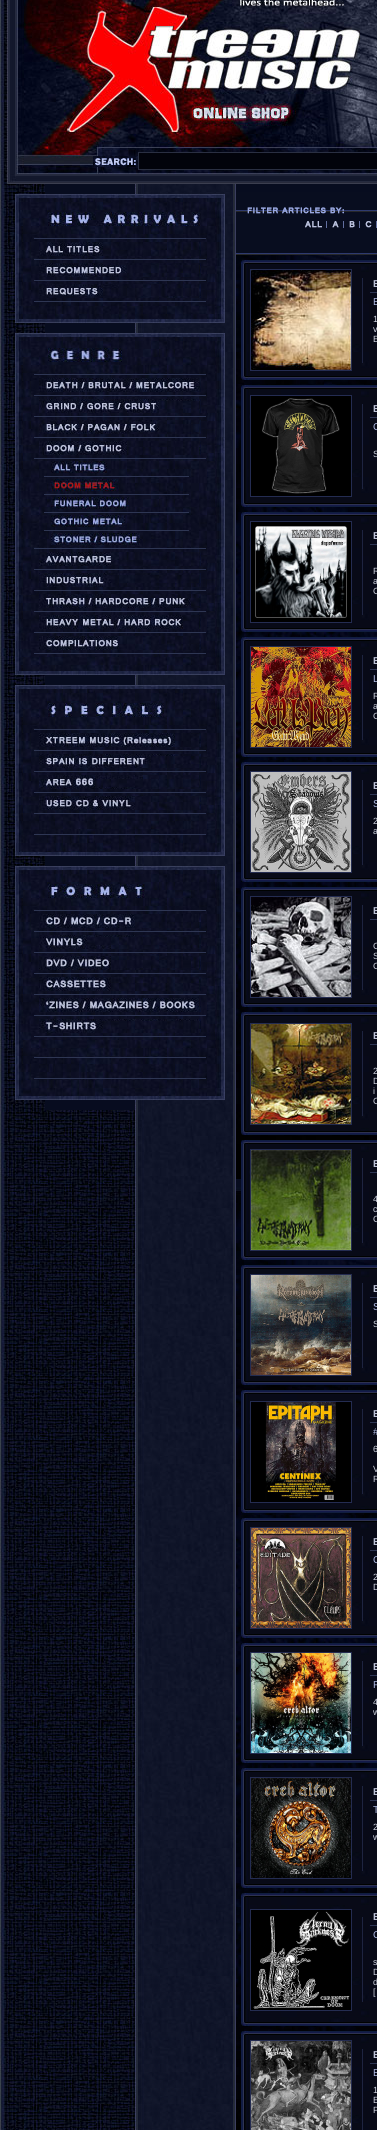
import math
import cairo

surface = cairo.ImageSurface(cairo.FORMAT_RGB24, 377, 2130)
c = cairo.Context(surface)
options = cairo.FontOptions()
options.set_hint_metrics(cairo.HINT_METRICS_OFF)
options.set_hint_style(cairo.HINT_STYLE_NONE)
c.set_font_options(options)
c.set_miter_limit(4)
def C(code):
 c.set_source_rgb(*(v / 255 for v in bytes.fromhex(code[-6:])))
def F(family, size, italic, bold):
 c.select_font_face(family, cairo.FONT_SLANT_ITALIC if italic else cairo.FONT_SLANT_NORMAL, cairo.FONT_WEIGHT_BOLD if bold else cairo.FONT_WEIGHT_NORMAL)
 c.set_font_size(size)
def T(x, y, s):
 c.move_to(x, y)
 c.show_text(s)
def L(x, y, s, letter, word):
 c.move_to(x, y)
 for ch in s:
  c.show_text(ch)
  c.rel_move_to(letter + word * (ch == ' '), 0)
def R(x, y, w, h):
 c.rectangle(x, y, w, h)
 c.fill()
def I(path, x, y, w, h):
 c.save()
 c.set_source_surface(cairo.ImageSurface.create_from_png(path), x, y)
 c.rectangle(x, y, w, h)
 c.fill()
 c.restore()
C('ffffff')
c.paint()
I('1.png',0,0,377,184)
I('2.png',93,156,45,11)
C('02030b')
c.rectangle(138.5,152.5,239,17)
c.fill_preserve()
C('2a2f42')
c.set_line_width(1)
c.stroke()
I('3.png',0,184,236,1946)
C('070c1f')
R(45,184,90,10)
I('4.png',15,198,210,125)
I('5.png',15,194,210,4)
I('6.png',48,212,153,14)
C('2e3653')
R(34,238,172,1)
I('7.png',39,242,162,14)
R(34,259,172,1)
I('8.png',39,263,162,14)
R(34,280,172,1)
I('9.png',39,284,162,14)
R(34,301,172,1)
I('10.png',15,319,209,4)
C('070c1f')
R(45,323,90,10)
I('11.png',15,337,210,334)
I('5.png',15,333,210,4)
I('12.png',48,348,74,14)
C('2e3653')
R(34,374,172,1)
I('13.png',39,378,162,14)
R(34,395,172,1)
I('14.png',39,399,162,14)
R(34,416,172,1)
I('15.png',39,420,162,14)
R(34,437,172,1)
I('16.png',39,441,162,14)
R(34,458,172,1)
I('17.png',51,461,56,12)
R(44,476,145,1)
I('18.png',51,479,67,12)
R(44,494,145,1)
I('19.png',51,497,78,12)
R(44,512,145,1)
I('20.png',51,515,74,12)
R(44,530,145,1)
I('21.png',51,533,89,12)
R(34,548,172,1)
I('22.png',39,552,162,14)
R(34,569,172,1)
I('23.png',39,573,162,14)
R(34,590,172,1)
I('24.png',39,594,162,14)
R(34,611,172,1)
I('25.png',39,615,162,14)
R(34,632,172,1)
I('26.png',39,636,162,14)
R(34,653,172,1)
I('27.png',15,671,210,4)
C('070c1f')
R(45,675,90,10)
I('28.png',15,689,210,163)
I('5.png',15,685,210,4)
I('29.png',48,703,116,14)
C('2e3653')
R(34,729,172,1)
I('30.png',39,733,162,14)
R(34,750,172,1)
I('31.png',39,754,162,14)
R(34,771,172,1)
I('32.png',39,775,162,14)
R(34,792,172,1)
I('33.png',39,796,162,14)
R(34,813,172,1)
R(34,834,172,1)
I('27.png',15,852,210,4)
C('070c1f')
R(45,856,90,10)
I('34.png',15,870,210,226)
I('5.png',15,866,210,4)
I('35.png',48,884,97,14)
C('2e3653')
R(34,910,172,1)
I('36.png',39,914,162,14)
R(34,931,172,1)
I('37.png',39,935,162,14)
R(34,952,172,1)
I('38.png',39,956,162,14)
R(34,973,172,1)
I('39.png',39,977,162,14)
R(34,994,172,1)
I('40.png',39,998,162,14)
R(34,1015,172,1)
I('41.png',39,1019,162,14)
R(34,1036,172,1)
R(34,1057,172,1)
R(34,1078,172,1)
I('27.png',15,1096,210,4)
C('070c1f')
R(45,1100,90,10)
I('42.png',236,184,141,1946)
I('43.png',236,192,141,63)
I('44.png',247,207,97,7)
I('45.png',305,221,17,7)
C('626f9f')
R(326,221,1,7)
I('46.png',332,221,7,7)
R(343,221,1,7)
I('47.png',349,221,6,7)
R(359,221,1,7)
I('48.png',365,221,7,7)
R(376,221,1,7)
I('49.png',241,260,136,4)
I('50.png',241,264,136,112)
c.rectangle(250.5,269.5,101,101)
C('242c51')
c.stroke()
I('51.png',251,270,100,100)
C('1e2440')
R(362,278,1,85)
F('Liberation Sans',10,0,1)
C('bfc4d8')
T(373,287,'E')
C('2e3653')
R(370,292,7,1)
F('Liberation Sans',10,0,0)
C('b1bce4')
T(373,305,'E')
F('Liberation Sans',9,0,0)
C('cfd3df')
L(373,322,'1',0,1)
L(373,332,'v',0,4)
T(373,342,'E')
I('52.png',241,376,136,4)
I('49.png',241,385,136,4)
I('53.png',241,389,136,114)
C('000000')
c.rectangle(250.5,395.5,101,101)
c.fill_preserve()
C('242c51')
c.stroke()
I('54.png',262,398,78,96)
C('1e2440')
R(362,404,1,85)
F('Liberation Sans',10,0,1)
C('bfc4d8')
T(373,412,'E')
C('2e3653')
R(370,417,7,1)
F('Liberation Sans',10,0,0)
C('b1bce4')
T(373,430,'C')
F('Liberation Sans',9,0,0)
C('cfd3df')
T(373,457,'S')
I('52.png',241,503,136,4)
I('49.png',241,512,136,4)
I('50.png',241,516,136,112)
C('000000')
c.rectangle(250.5,521.5,101,101)
c.fill_preserve()
C('242c51')
c.stroke()
I('55.png',255,526,92,92)
C('1e2440')
R(362,530,1,85)
F('Liberation Sans',10,0,1)
C('bfc4d8')
T(373,539,'E')
C('2e3653')
R(370,544,7,1)
F('Liberation Sans',9,0,0)
C('cfd3df')
T(373,574,'R')
L(373,584,'a',0,5)
T(373,594,'C')
I('52.png',241,628,136,4)
I('49.png',241,637,136,4)
I('50.png',241,641,136,112)
c.rectangle(250.5,646.5,101,101)
C('242c51')
c.stroke()
I('56.png',251,647,100,100)
C('1e2440')
R(362,655,1,85)
F('Liberation Sans',10,0,1)
C('bfc4d8')
T(373,664,'E')
C('2e3653')
R(370,669,7,1)
F('Liberation Sans',10,0,0)
C('b1bce4')
T(373,682,'L')
F('Liberation Sans',9,0,0)
C('cfd3df')
T(373,699,'R')
L(373,709,'a',0,5)
T(373,719,'C')
I('52.png',241,753,136,4)
I('49.png',241,762,136,4)
I('50.png',241,766,136,112)
c.rectangle(250.5,771.5,101,101)
C('242c51')
c.stroke()
I('57.png',251,772,100,100)
C('1e2440')
R(362,780,1,85)
F('Liberation Sans',10,0,1)
C('bfc4d8')
T(373,789,'E')
C('2e3653')
R(370,794,7,1)
F('Liberation Sans',10,0,0)
C('b1bce4')
T(373,807,'S')
F('Liberation Sans',9,0,0)
C('cfd3df')
L(373,824,'2',0,1)
T(373,834,'a')
I('52.png',241,878,136,4)
I('49.png',241,887,136,4)
I('50.png',241,891,136,112)
c.rectangle(250.5,896.5,101,101)
C('242c51')
c.stroke()
I('58.png',251,897,100,100)
C('1e2440')
R(362,905,1,85)
F('Liberation Sans',10,0,1)
C('bfc4d8')
T(373,914,'E')
C('2e3653')
R(370,919,7,1)
F('Liberation Sans',9,0,0)
C('cfd3df')
L(373,949,'C',0,1)
L(373,959,'S',0,1)
T(373,969,'C')
I('52.png',241,1003,136,4)
I('49.png',241,1012,136,4)
I('59.png',241,1016,136,115)
c.rectangle(250.5,1023.5,101,101)
C('242c51')
c.stroke()
I('60.png',251,1024,100,100)
C('1e2440')
R(362,1031,1,85)
F('Liberation Sans',10,0,1)
C('bfc4d8')
T(373,1039,'E')
C('2e3653')
R(370,1044,7,1)
F('Liberation Sans',9,0,0)
C('cfd3df')
L(373,1074,'2',0,2)
L(373,1084,'D',0,1)
L(373,1094,'i',0,1)
T(373,1104,'C')
I('52.png',241,1131,136,4)
I('49.png',241,1140,136,4)
I('50.png',241,1144,136,112)
c.rectangle(250.5,1149.5,101,101)
C('242c51')
c.stroke()
I('61.png',251,1150,100,100)
C('1e2440')
R(362,1158,1,85)
F('Liberation Sans',10,0,1)
C('bfc4d8')
T(373,1167,'E')
C('2e3653')
R(370,1172,7,1)
F('Liberation Sans',9,0,0)
C('cfd3df')
L(373,1202,'4',0,1)
L(373,1212,'c',0,1)
T(373,1222,'C')
I('52.png',241,1256,136,4)
I('49.png',241,1265,136,4)
I('50.png',241,1269,136,112)
c.rectangle(250.5,1274.5,101,101)
C('242c51')
c.stroke()
I('62.png',251,1275,100,100)
C('1e2440')
R(362,1283,1,85)
F('Liberation Sans',10,0,1)
C('bfc4d8')
T(373,1292,'E')
C('2e3653')
R(370,1297,7,1)
F('Liberation Sans',10,0,0)
C('b1bce4')
T(373,1310,'S')
F('Liberation Sans',9,0,0)
C('cfd3df')
T(373,1327,'S')
I('52.png',241,1381,136,4)
I('49.png',241,1390,136,4)
I('59.png',241,1394,136,115)
C('000000')
c.rectangle(250.5,1401.5,101,101)
c.fill_preserve()
C('242c51')
c.stroke()
I('63.png',265,1402,71,98)
C('1e2440')
R(362,1409,1,85)
F('Liberation Sans',10,0,1)
C('bfc4d8')
T(373,1417,'E')
C('2e3653')
R(370,1422,7,1)
F('Liberation Sans',10,0,0)
C('b1bce4')
T(373,1435,'#')
F('Liberation Sans',9,0,0)
C('cfd3df')
L(373,1452,'6',0,3)
L(373,1472,'V',0,4)
T(373,1482,'R')
I('52.png',241,1509,136,4)
I('49.png',241,1518,136,4)
I('50.png',241,1522,136,112)
c.rectangle(250.5,1527.5,101,101)
C('242c51')
c.stroke()
I('64.png',251,1528,100,100)
C('1e2440')
R(362,1536,1,85)
F('Liberation Sans',10,0,1)
C('bfc4d8')
T(373,1545,'E')
C('2e3653')
R(370,1550,7,1)
F('Liberation Sans',10,0,0)
C('b1bce4')
T(373,1563,'C')
F('Liberation Sans',9,0,0)
C('cfd3df')
L(373,1580,'2',0,1)
L(373,1590,'D',0,3)
I('52.png',241,1634,136,4)
I('49.png',241,1643,136,4)
I('50.png',241,1647,136,112)
c.rectangle(250.5,1652.5,101,101)
C('242c51')
c.stroke()
I('65.png',251,1653,100,100)
C('1e2440')
R(362,1661,1,85)
F('Liberation Sans',10,0,1)
C('bfc4d8')
T(373,1670,'E')
C('2e3653')
R(370,1675,7,1)
F('Liberation Sans',10,0,0)
C('b1bce4')
T(373,1688,'F')
F('Liberation Sans',9,0,0)
C('cfd3df')
T(373,1705,'4')
T(373,1715,'w')
I('52.png',241,1759,136,4)
I('49.png',241,1768,136,4)
I('50.png',241,1772,136,112)
c.rectangle(250.5,1777.5,101,101)
C('242c51')
c.stroke()
I('66.png',251,1778,100,100)
C('1e2440')
R(362,1786,1,85)
F('Liberation Sans',10,0,1)
C('bfc4d8')
T(373,1795,'E')
C('2e3653')
R(370,1800,7,1)
F('Liberation Sans',10,0,0)
C('b1bce4')
T(373,1813,'T')
F('Liberation Sans',9,0,0)
C('cfd3df')
T(373,1830,'2')
T(373,1840,'w')
I('52.png',241,1884,136,4)
I('49.png',241,1893,136,4)
I('67.png',241,1897,136,125)
C('000000')
c.rectangle(250.5,1909.5,101,101)
c.fill_preserve()
C('242c51')
c.stroke()
I('68.png',253,1911,97,98)
C('1e2440')
R(362,1917,1,85)
F('Liberation Sans',10,0,1)
C('bfc4d8')
T(373,1920,'E')
C('2e3653')
R(370,1925,7,1)
F('Liberation Sans',10,0,0)
C('b1bce4')
T(373,1938,'C')
F('Liberation Sans',9,0,0)
C('cfd3df')
T(373,1965,'s')
L(373,1975,'D',0,1)
T(373,1985,'d')
T(373,1995,'[')
I('52.png',241,2022,136,4)
I('49.png',241,2031,136,4)
I('69.png',241,2035,136,95)
c.rectangle(250.5,2040.5,101,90)
C('242c51')
c.stroke()
I('70.png',251,2041,100,89)
C('1e2440')
R(362,2049,1,81)
F('Liberation Sans',10,0,1)
C('bfc4d8')
T(373,2058,'E')
C('2e3653')
R(370,2063,7,1)
F('Liberation Sans',10,0,0)
C('b1bce4')
T(373,2076,'E')
F('Liberation Sans',9,0,0)
C('cfd3df')
L(373,2093,'1',0,1)
L(373,2103,'E',0,1)
T(373,2113,'P')
surface.write_to_png('o.png')
